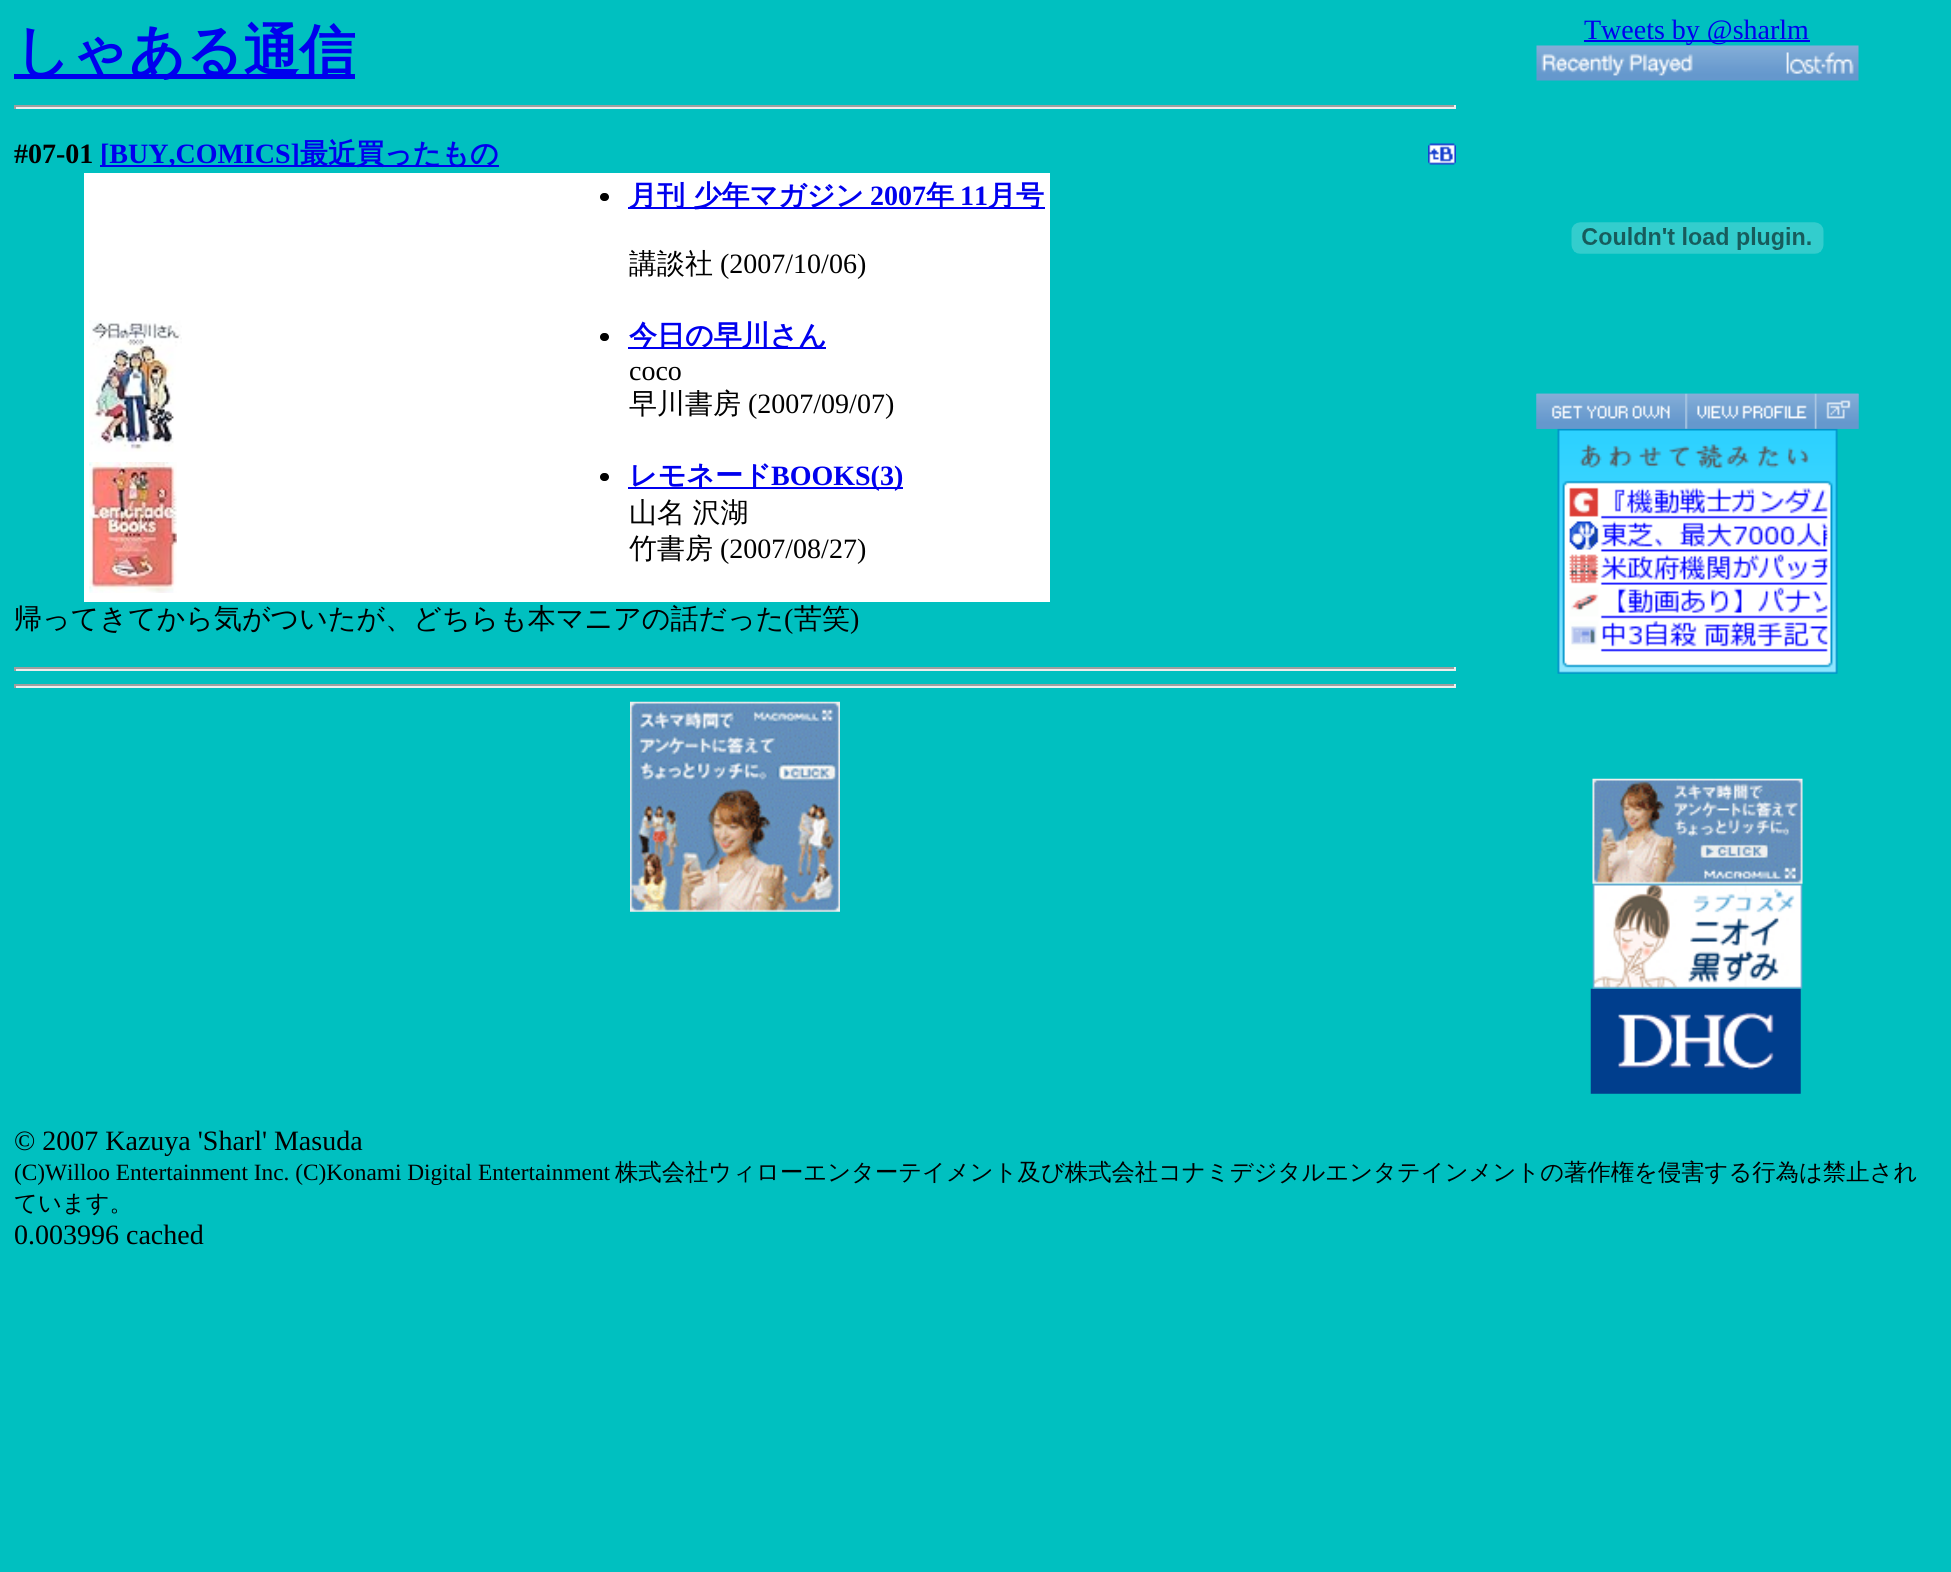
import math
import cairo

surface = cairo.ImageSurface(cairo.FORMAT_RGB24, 1951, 1572)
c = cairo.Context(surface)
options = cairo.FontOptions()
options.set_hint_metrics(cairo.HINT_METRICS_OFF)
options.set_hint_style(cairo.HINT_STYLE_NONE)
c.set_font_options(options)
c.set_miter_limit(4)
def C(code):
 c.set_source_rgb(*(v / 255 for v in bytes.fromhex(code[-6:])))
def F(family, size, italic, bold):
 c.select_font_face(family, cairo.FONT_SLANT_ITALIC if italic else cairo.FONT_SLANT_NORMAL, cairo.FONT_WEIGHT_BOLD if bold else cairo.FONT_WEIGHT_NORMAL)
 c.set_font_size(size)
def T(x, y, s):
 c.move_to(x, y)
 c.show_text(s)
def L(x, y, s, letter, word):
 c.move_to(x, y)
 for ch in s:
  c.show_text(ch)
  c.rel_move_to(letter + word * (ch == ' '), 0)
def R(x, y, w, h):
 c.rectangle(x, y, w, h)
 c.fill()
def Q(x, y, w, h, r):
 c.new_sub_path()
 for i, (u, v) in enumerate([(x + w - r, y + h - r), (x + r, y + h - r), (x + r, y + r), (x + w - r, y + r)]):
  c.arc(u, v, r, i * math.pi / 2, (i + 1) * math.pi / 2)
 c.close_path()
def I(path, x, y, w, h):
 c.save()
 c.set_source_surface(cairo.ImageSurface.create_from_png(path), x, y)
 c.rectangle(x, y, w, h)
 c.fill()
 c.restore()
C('00c0c0')
c.paint()
C('0000ee')
R(14,74,341,5)
F('WenQuanYi Zen Hei',56,0,1)
T(14,70,'しゃある通信')
C('9f9f9f')
R(14,105,1442,2)
C('eeeeee')
R(1454,105,2,4)
R(14,107,1442,2)
C('9f9f9f')
R(14,105,2,4)
F('Liberation Serif',28,0,1)
C('000000')
T(14,163,'#07-01')
C('0000ee')
R(100,165,399,2)
T(100,163,'[BUY,COMICS]')
F('WenQuanYi Zen Hei',28,0,1)
T(300,163,'最近買ったもの')
I('1.png',1428,143,28,22)
C('ffffff')
R(84,173,966,429)
C('000000')
Q(600,193,9,8,4)
c.fill()
C('0000ee')
R(628,207,417,2)
T(629,205,'月刊 少年マガジン')
F('Liberation Serif',28,0,1)
T(870,205,'2007')
F('WenQuanYi Zen Hei',28,0,1)
T(926,205,'年')
F('Liberation Serif',28,0,1)
T(960,205,'11')
F('WenQuanYi Zen Hei',28,0,1)
T(988,205,'月号')
F('WenQuanYi Zen Hei Medium',28,0,0)
C('000000')
T(629,273,'講談社')
F('Liberation Serif',28,0,0)
T(720,273,'(2007/10/06)')
I('2.png',89,320,93,132)
Q(600,333,9,8,4)
c.fill()
C('0000ee')
R(628,347,198,2)
F('WenQuanYi Zen Hei',28,0,1)
T(629,345,'今日の早川さん')
F('Liberation Serif',28,0,0)
C('000000')
T(629,380,'coco')
F('WenQuanYi Zen Hei Medium',28,0,0)
T(629,413,'早川書房')
F('Liberation Serif',28,0,0)
T(748,413,'(2007/09/07)')
I('3.png',89,462,88,131)
Q(600,473,9,8,4)
c.fill()
C('0000ee')
R(628,487,275,2)
F('WenQuanYi Zen Hei',28,0,1)
T(629,485,'レモネード')
F('Liberation Serif',28,0,1)
T(771,485,'BOOKS(3)')
F('WenQuanYi Zen Hei Medium',28,0,0)
C('000000')
L(629,522,'山名 沢湖',0,-1)
T(629,558,'竹書房')
F('Liberation Serif',28,0,0)
T(720,558,'(2007/08/27)')
F('WenQuanYi Zen Hei Medium',28,0,0)
T(14,628,'帰ってきてから気がついたが、どちらも本マニアの話だった')
F('Liberation Serif',28,0,0)
T(784,628,'(')
F('WenQuanYi Zen Hei Medium',28,0,0)
T(794,628,'苦笑')
F('Liberation Serif',28,0,0)
T(850,628,')')
C('9f9f9f')
R(14,667,1442,2)
C('eeeeee')
R(1454,667,2,4)
R(14,669,1442,2)
C('9f9f9f')
R(14,667,2,4)
R(14,684,1442,2)
C('eeeeee')
R(1454,684,2,4)
R(14,686,1442,2)
C('9f9f9f')
R(14,684,2,4)
I('4.png',630,701,210,211)
C('0000ee')
R(1584,40,226,2)
T(1584,39,'Tweets by @sharlm')
I('5.png',1536,45,323,36)
I('6.png',1571,222,253,32)
I('7.png',1536,393,323,36)
I('11.png',1557,428,281,246)
I('8.png',1536,393,150,36)
I('9.png',1685,393,130,36)
I('10.png',1814,393,45,36)
I('12.png',1592,778,211,106)
I('14.png',1590,988,211,106)
I('13.png',1592,883,211,106)
C('000000')
T(14,1150,'© 2007 Kazuya \'Sharl\' Masuda')
F('Liberation Serif',23.33,0,0)
T(14,1180,'(C)Willoo Entertainment Inc. (C)Konami Digital Entertainment')
F('WenQuanYi Zen Hei Medium',23.33,0,0)
T(615,1180,'株式会社ウィローエンターテイメント及び株式会社コナミデジタルエンタテインメントの著作権を侵害する行為は禁止され')
T(14,1211,'ています。')
F('Liberation Serif',28,0,0)
T(14,1244,'0.003996 cached')
surface.write_to_png('o.png')
